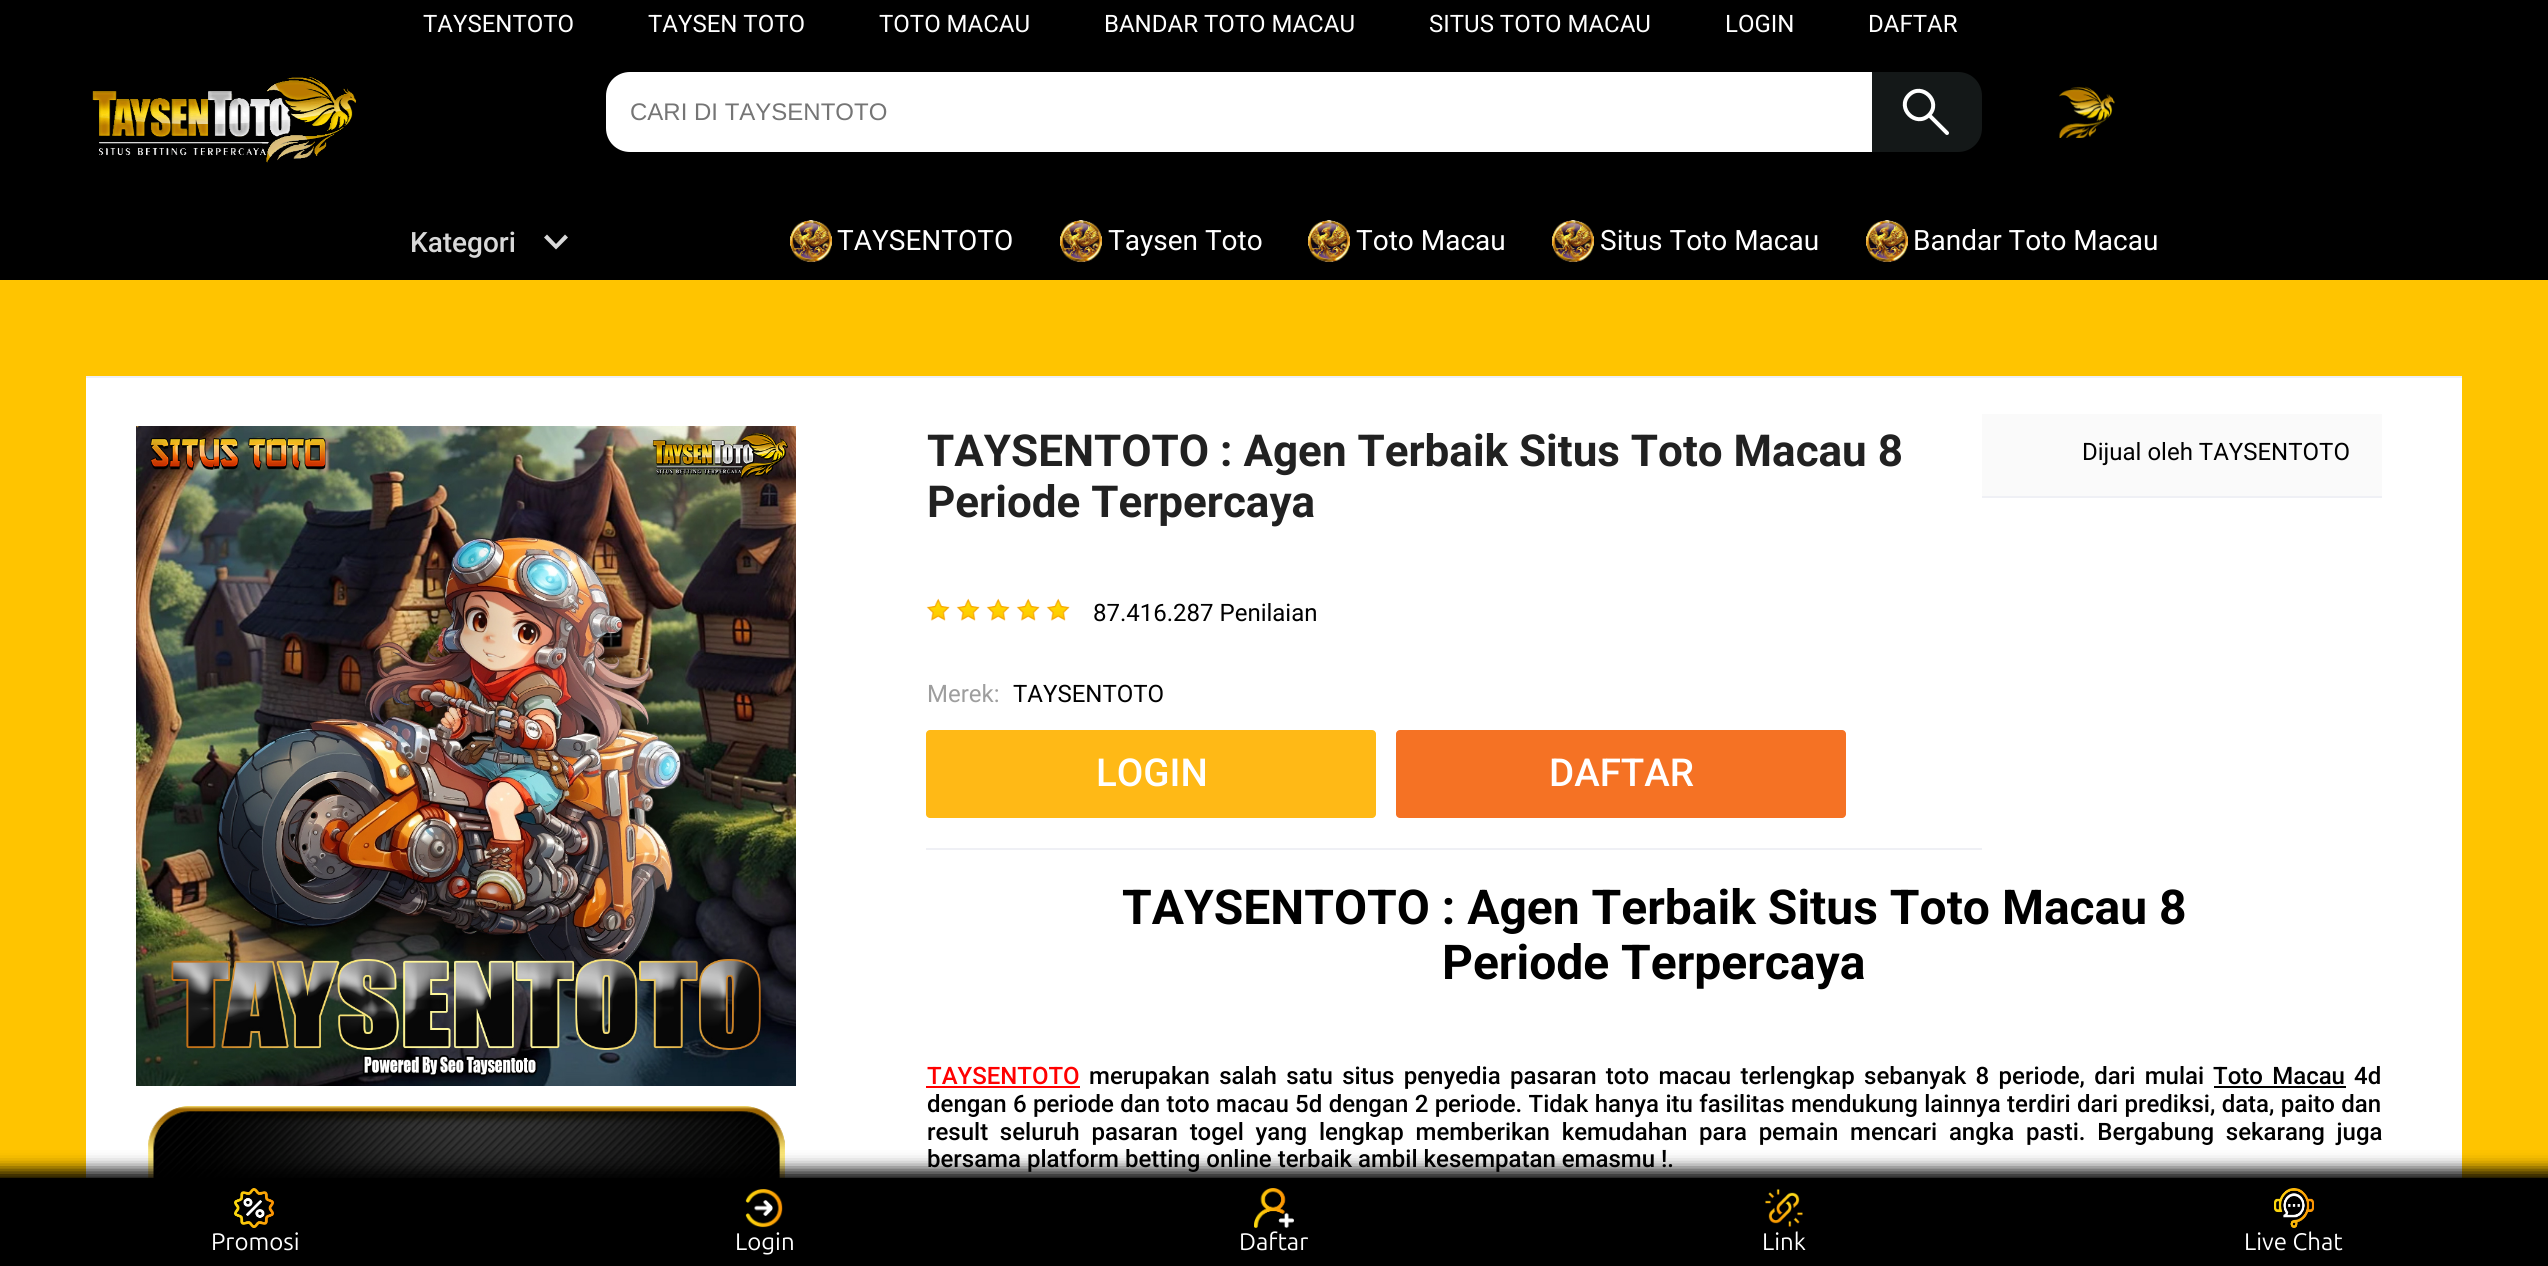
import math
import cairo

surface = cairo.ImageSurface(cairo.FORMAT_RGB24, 2548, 1266)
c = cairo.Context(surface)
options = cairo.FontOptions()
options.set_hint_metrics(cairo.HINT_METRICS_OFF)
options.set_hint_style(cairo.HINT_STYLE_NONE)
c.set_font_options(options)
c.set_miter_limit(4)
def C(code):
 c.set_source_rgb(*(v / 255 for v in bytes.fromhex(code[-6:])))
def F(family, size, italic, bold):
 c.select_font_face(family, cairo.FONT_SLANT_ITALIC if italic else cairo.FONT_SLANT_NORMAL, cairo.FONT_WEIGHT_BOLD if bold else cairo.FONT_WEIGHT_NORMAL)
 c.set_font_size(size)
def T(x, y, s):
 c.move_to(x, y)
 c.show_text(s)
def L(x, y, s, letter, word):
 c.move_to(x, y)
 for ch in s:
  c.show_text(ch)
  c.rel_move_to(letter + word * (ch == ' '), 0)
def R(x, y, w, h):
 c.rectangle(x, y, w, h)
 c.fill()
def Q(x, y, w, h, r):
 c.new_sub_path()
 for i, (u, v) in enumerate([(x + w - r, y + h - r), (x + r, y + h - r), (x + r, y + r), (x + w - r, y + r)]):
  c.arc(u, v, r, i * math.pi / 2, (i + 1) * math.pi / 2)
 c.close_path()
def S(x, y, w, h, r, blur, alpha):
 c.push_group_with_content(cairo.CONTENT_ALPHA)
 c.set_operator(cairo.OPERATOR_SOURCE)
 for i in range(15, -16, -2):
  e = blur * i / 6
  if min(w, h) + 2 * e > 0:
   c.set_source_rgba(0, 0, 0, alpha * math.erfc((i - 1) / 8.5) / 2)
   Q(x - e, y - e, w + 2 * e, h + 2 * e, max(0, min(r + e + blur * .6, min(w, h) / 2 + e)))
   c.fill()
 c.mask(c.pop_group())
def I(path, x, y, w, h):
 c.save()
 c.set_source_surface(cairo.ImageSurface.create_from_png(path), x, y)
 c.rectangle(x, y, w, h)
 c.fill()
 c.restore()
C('ffc400')
c.paint()
C('000000')
R(0,0,2548,280)
F('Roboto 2',24,0,0)
C('ffffff')
T(423,32,'TAYSENTOTO')
T(648,32,'TAYSEN TOTO')
T(879,32,'TOTO MACAU')
T(1104,32,'BANDAR TOTO MACAU')
T(1429,32,'SITUS TOTO MACAU')
T(1725,32,'LOGIN')
T(1868,32,'DAFTAR')
I('1.png',92,77,265,86)
c.new_path()
c.move_to(630,72)
c.line_to(1872,72)
c.line_to(1872,152)
c.line_to(630,152)
c.curve_to(616.5,152,606,141.5,606,128)
c.line_to(606,96)
c.curve_to(606,82.5,616.5,72,630,72)
c.close_path()
c.fill()
F('Liberation Sans',24,0,0)
C('757575')
T(630,120,'CARI DI TAYSENTOTO')
C('141818')
c.new_path()
c.move_to(1872,72)
c.line_to(1958,72)
c.curve_to(1971.5,72,1982,82.5,1982,96)
c.line_to(1982,128)
c.curve_to(1982,141.5,1971.5,152,1958,152)
c.line_to(1872,152)
c.close_path()
c.fill()
c.new_path()
c.move_to(1929,115)
c.curve_to(1942,102,1922,82,1909,95)
c.curve_to(1896,108,1916,128,1929,115)
c.close_path()
c.move_to(1929.5,115.5)
c.line_to(1947,133)
C('ffffff')
c.set_line_width(4)
c.set_line_cap(cairo.LINE_CAP_ROUND)
c.set_line_join(cairo.LINE_JOIN_ROUND)
c.stroke()
I('2.png',2059,86,56,52)
F('Roboto 2 Medium',28,0,0)
C('d9d9d9')
T(410,252,'Kategori')
c.new_path()
c.move_to(565,234.5)
c.line_to(568,237.5)
c.line_to(556,249.5)
c.line_to(544,237.5)
c.line_to(547,234.5)
c.line_to(556,244)
c.close_path()
c.fill()
I('3.png',790,220,42,42)
F('Roboto 2',28,0,0)
C('ffffff')
T(837,250,'TAYSENTOTO')
I('3.png',1060,220,42,42)
T(1108,250,'Taysen Toto')
I('4.png',1308,220,42,42)
T(1356,250,'Toto Macau')
I('3.png',1552,220,42,42)
T(1600,250,'Situs Toto Macau')
I('3.png',1866,220,42,42)
T(1913,250,'Bandar Toto Macau')
C('eff0f5')
R(86,376,2376,2)
C('ffffff')
R(86,378,2376,800)
I('5.png',136,426,660,660)
I('6.png',148,1106,637,72)
F('Roboto',44,0,1)
C('212121')
T(927,466,'TAYSENTOTO : Agen Terbaik Situs Toto Macau 8')
T(927,517,'Periode Terpercaya')
I('7.png',926,598,24,23)
I('7.png',956,598,24,23)
I('7.png',986,598,24,23)
I('7.png',1016,598,24,23)
I('7.png',1046,598,24,23)
F('Roboto',24,0,0)
C('000000')
T(1093,621,'87.416.287 Penilaian')
C('eff0f5')
R(926,848,1056,2)
C('9e9e9e')
T(927,702,'Merek:')
C('000000')
T(1013,702,'TAYSENTOTO')
C('ffb916')
Q(926,730,450,88,4)
c.fill()
F('Roboto Medium',38.5,0,0)
C('ffffff')
T(1096,786,'LOGIN')
C('f57224')
Q(1396,730,450,88,4)
c.fill()
C('ffffff')
T(1549,786,'DAFTAR')
C('fafafa')
R(1982,414,400,82)
F('Roboto',24,0,0)
C('000000')
T(2082,460,'Dijual oleh TAYSENTOTO')
C('eff0f5')
R(1982,496,400,2)
F('Roboto',48,0,1)
C('000000')
T(1122,924,'TAYSENTOTO : Agen Terbaik Situs Toto Macau 8')
T(1442,979,'Periode Terpercaya')
F('Roboto Medium',24,0,0)
C('ff0000')
T(927,1084,'TAYSENTOTO')
R(926,1086,154,2)
C('000000')
L(1089,1084,'merupakan salah satu situs penyedia pasaran toto macau terlengkap sebanyak 8 periode, dari mulai',0,3.4)
L(2213,1084,'Toto Macau',0,3.4)
R(2214,1086,132,2)
T(2354,1084,'4d')
L(927,1112,'dengan 6 periode dan toto macau 5d dengan 2 periode. Tidak hanya itu fasilitas mendukung lainnya terdiri dari prediksi, data, paito dan',0,.4)
L(927,1140,'result seluruh pasaran togel yang lengkap memberikan kemudahan para pemain mencari angka pasti. Bergabung sekarang juga',0,5.75)
T(927,1167,'bersama platform betting online terbaik ambil kesempatan emasmu !.')
C('000000')
S(-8,1170,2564,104,0,8,1)
C('000000')
R(0,1178,2548,88)
I('8.png',234,1188,40,40)
F('Ubuntu',24,0,0)
C('ffffff')
T(211,1250,'Promosi')
I('9.png',745,1189,38,39)
T(735,1250,'Login')
I('10.png',1254,1188,40,40)
T(1239,1250,'Daftar')
I('11.png',1765,1189,38,38)
T(1762,1250,'Link')
I('12.png',2274,1188,40,40)
T(2244,1250,'Live Chat')
surface.write_to_png('o.png')
